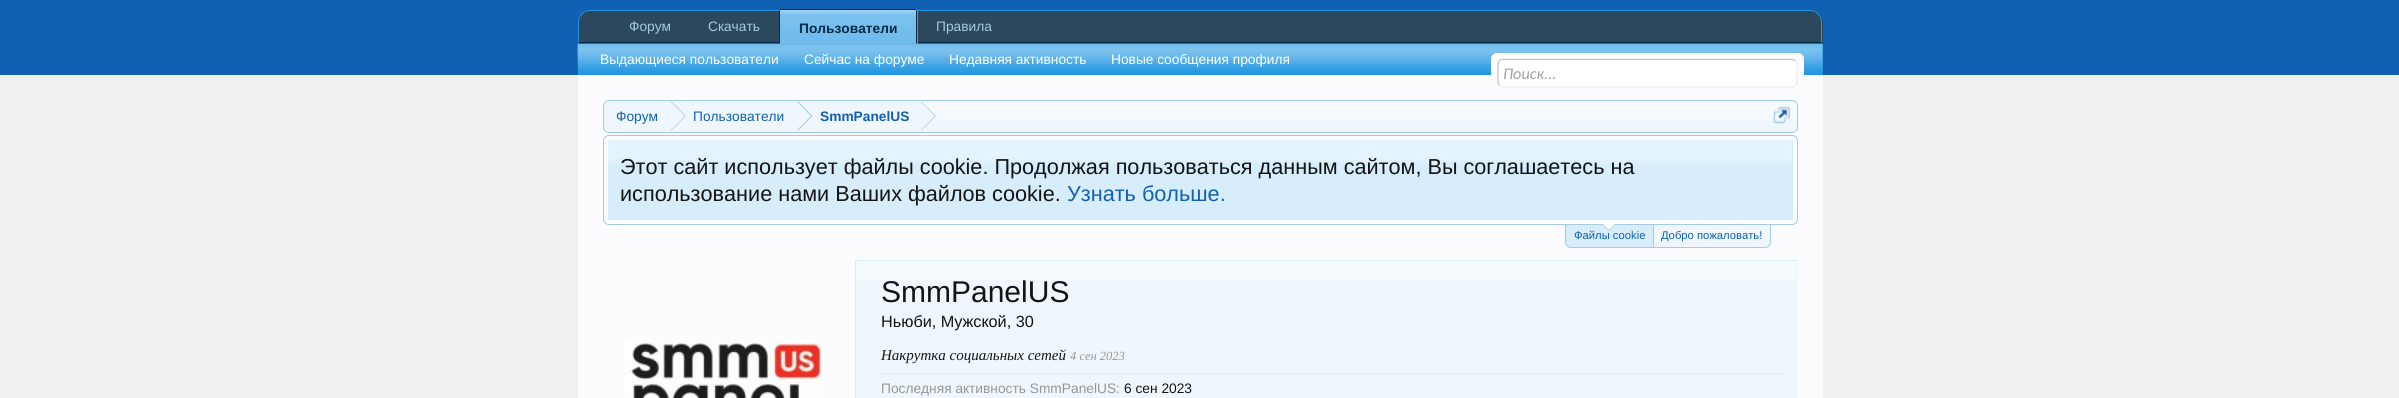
import math
import cairo

surface = cairo.ImageSurface(cairo.FORMAT_RGB24, 2399, 398)
c = cairo.Context(surface)
options = cairo.FontOptions()
options.set_hint_metrics(cairo.HINT_METRICS_OFF)
options.set_hint_style(cairo.HINT_STYLE_NONE)
c.set_font_options(options)
c.set_miter_limit(4)
def C(code):
 c.set_source_rgb(*(v / 255 for v in bytes.fromhex(code[-6:])))
def F(family, size, italic, bold):
 c.select_font_face(family, cairo.FONT_SLANT_ITALIC if italic else cairo.FONT_SLANT_NORMAL, cairo.FONT_WEIGHT_BOLD if bold else cairo.FONT_WEIGHT_NORMAL)
 c.set_font_size(size)
def T(x, y, s):
 c.move_to(x, y)
 c.show_text(s)
def R(x, y, w, h):
 c.rectangle(x, y, w, h)
 c.fill()
def Q(x, y, w, h, r):
 c.new_sub_path()
 for i, (u, v) in enumerate([(x + w - r, y + h - r), (x + r, y + h - r), (x + r, y + r), (x + w - r, y + r)]):
  c.arc(u, v, r, i * math.pi / 2, (i + 1) * math.pi / 2)
 c.close_path()
def I(path, x, y, w, h):
 c.save()
 c.set_source_surface(cairo.ImageSurface.create_from_png(path), x, y)
 c.rectangle(x, y, w, h)
 c.fill()
 c.restore()
C('f0f0f0')
c.paint()
C('1061b3')
R(0,0,2399,75)
C('2b485c')
c.new_path()
c.move_to(591,10)
c.line_to(1810,10)
c.curve_to(1817,10,1823,16,1823,23)
c.line_to(1823,44)
c.line_to(578,44)
c.line_to(578,23)
c.curve_to(578,16,584,10,591,10)
c.close_path()
c.fill()
C('2096e1')
c.new_path()
c.move_to(590,10)
c.curve_to(586,10,583,12,581,14)
c.line_to(582,15)
c.curve_to(584,12,587,11,590,11)
c.line_to(1810,11)
c.curve_to(1813,11,1816,12,1818,15)
c.line_to(1819,14)
c.curve_to(1817,12,1814,10,1810,10)
c.close_path()
c.fill()
c.new_path()
c.move_to(1818.5,14)
c.curve_to(1821,16,1822,19,1822,22)
c.line_to(1822,43)
c.line_to(1821,42)
c.line_to(1821,22)
c.curve_to(1821,19,1820,16.5,1818,14.5)
c.close_path()
c.fill()
C('032a46')
c.new_path()
c.move_to(578,44)
c.line_to(579,42)
c.line_to(1821,42)
c.line_to(1822,43)
c.line_to(1822,44)
c.close_path()
c.fill()
C('2096e1')
c.new_path()
c.move_to(581.5,14)
c.curve_to(579,16,578,19,578,22)
c.line_to(578,43)
c.line_to(579,42)
c.line_to(579,22)
c.curve_to(579,19,580,16.5,582,14.5)
c.close_path()
c.fill()
F('Liberation Sans',13.75,0,0)
C('a5cae4')
T(629,31,'Форум')
T(708,31,'Скачать')
T(936,31,'Правила')
C('2096e1')
c.new_path()
c.move_to(781.5,9)
c.line_to(915.5,9)
c.curve_to(917,9,918,10,918,11.5)
c.line_to(918,44)
c.line_to(779,44)
c.line_to(779,11.5)
c.curve_to(779,10,780,9,781.5,9)
c.close_path()
c.fill()
I('1.png',778,9,140,35)
C('032a46')
R(780,9,136,1)
R(916,10,1,34)
R(779,10,1,34)
F('Liberation Sans',13.75,0,1)
T(799,33,'Пользователи')
C('2096e1')
R(578,44,1245,31)
I('2.png',577,43,1246,30)
F('Liberation Sans',13.75,0,0)
C('ffffff')
T(600,64,'Выдающиеся пользователи')
T(804,64,'Сейчас на форуме')
T(949,64,'Недавняя активность')
T(1111,64,'Новые сообщения профиля')
C('fcfcff')
R(578,75,1245,323)
Q(1491,53,313,35,6)
c.fill()
C('ffffff')
Q(1498,59,300,29,5)
c.fill()
c.new_path()
c.move_to(1795.5,60.5)
c.curve_to(1798,63.5,1797,75.5,1797,79.5)
c.curve_to(1797,82.5,1797,87,1792.5,87)
c.line_to(1502.5,87)
c.line_to(1499.5,85.5)
C('e9e9e9')
c.set_line_width(1.2)
c.stroke()
c.new_path()
c.move_to(1499.5,85.5)
c.curve_to(1497,83,1498,70.5,1498,67)
c.curve_to(1498,63.5,1498,59.5,1502.5,59.5)
c.line_to(1792.5,59.5)
c.line_to(1795.5,60.5)
C('c0c0c0')
c.stroke()
F('Carlito',16.25,1,0)
C('a0a0a0')
T(1503,79,'Поиск...')
C('f0f7fc')
Q(603,100,1195,33,6)
c.fill()
I('3.png',603,101,1194,19)
Q(603.5,100.5,1194,32,5.5)
C('a5cae4')
c.set_line_width(1)
c.stroke()
c.save()
Q(604,101,1192,30,5)
c.clip()
C('f0f7fc')
c.new_path()
c.move_to(610,101)
c.line_to(671,101)
c.line_to(671,133)
c.line_to(610,133)
c.curve_to(606.5,133,604,130.5,604,127)
c.line_to(604,107)
c.curve_to(604,103.5,606.5,101,610,101)
c.close_path()
c.fill()
c.restore()
F('Liberation Sans',13.75,0,0)
C('1061b3')
T(616,121,'Форум')
C('f0f7fc')
R(671,101,250,19)
C('a5cae4')
c.new_path()
c.move_to(671,131)
c.line_to(671,101)
c.line_to(686,116)
c.close_path()
c.fill()
C('f0f7fc')
c.new_path()
c.move_to(670,131)
c.line_to(670,101)
c.line_to(685,116)
c.close_path()
c.fill()
C('1061b3')
T(693,121,'Пользователи')
C('a5cae4')
c.new_path()
c.move_to(797.5,131)
c.line_to(797.5,101)
c.line_to(812.5,116)
c.close_path()
c.fill()
C('f0f7fc')
c.new_path()
c.move_to(796,131)
c.line_to(796,101)
c.line_to(811,116)
c.close_path()
c.fill()
F('Liberation Sans',13.75,0,1)
C('1061b3')
T(820,121,'SmmPanelUS')
C('a5cae4')
c.new_path()
c.move_to(921,131)
c.line_to(921,101)
c.line_to(936,116)
c.close_path()
c.fill()
C('f0f7fc')
c.new_path()
c.move_to(920,131)
c.line_to(920,101)
c.line_to(935,116)
c.close_path()
c.fill()
I('4.png',1773,107,17,17)
Q(603.5,135.5,1194,89,5.5)
C('a5cae4')
c.stroke()
C('d7edfc')
R(608,140,1185,80)
I('5.png',608,140,1184,24)
F('Liberation Sans',21.65,0,0)
C('141414')
T(620,174,'Этот сайт использует файлы cookie. Продолжая пользоваться данным сайтом, Вы соглашаетесь на')
T(620,201,'использование нами Ваших файлов cookie.')
C('1061b3')
T(1067,201,'Узнать больше.')
C('d7edfc')
c.new_path()
c.move_to(1565.5,224.5)
c.line_to(1653.5,224.5)
c.line_to(1653.5,247.5)
c.line_to(1571,247.5)
c.curve_to(1568,247.5,1565.5,245,1565.5,242)
c.close_path()
c.fill_preserve()
C('a5cae4')
c.stroke()
F('Liberation Sans',11.25,0,0)
C('1061b3')
T(1574,239,'Файлы cookie')
C('a5cae4')
c.new_path()
c.move_to(1602.5,225)
c.line_to(1615,225)
c.line_to(1609,231)
c.close_path()
c.fill()
C('fcfcff')
c.new_path()
c.move_to(1602.5,224)
c.line_to(1615,224)
c.line_to(1609,230)
c.close_path()
c.fill()
C('f0f7fc')
c.new_path()
c.move_to(1653.5,224.5)
c.line_to(1770.5,224.5)
c.line_to(1770.5,242)
c.curve_to(1770.5,245,1768,247.5,1765,247.5)
c.line_to(1653.5,247.5)
c.close_path()
c.fill_preserve()
C('a5cae4')
c.stroke()
C('1061b3')
T(1661,239,'Добро пожаловать!')
I('6.png',624,339,200,59)
C('d7edfc')
R(855,260,1,138)
R(856,260,942,1)
C('f0f7fc')
R(856,261,942,137)
I('7.png',857,261,940,19)
F('Liberation Sans',30,0,0)
C('141414')
T(881,302,'SmmPanelUS')
F('Liberation Sans',16.25,0,0)
T(881,327,'Ньюби, Мужской, 30')
F('Liberation Serif',15,1,0)
T(881,360,'Накрутка социальных сетей')
F('Liberation Serif',12.5,1,0)
C('969696')
T(1070,360,'4 сен 2023')
C('d7edfc')
R(881,373,904,1)
F('Liberation Sans',13.75,0,0)
C('969696')
T(881,393,'Последняя активность SmmPanelUS:')
C('141414')
T(1124,393,'6 сен 2023')
surface.write_to_png('o.png')
